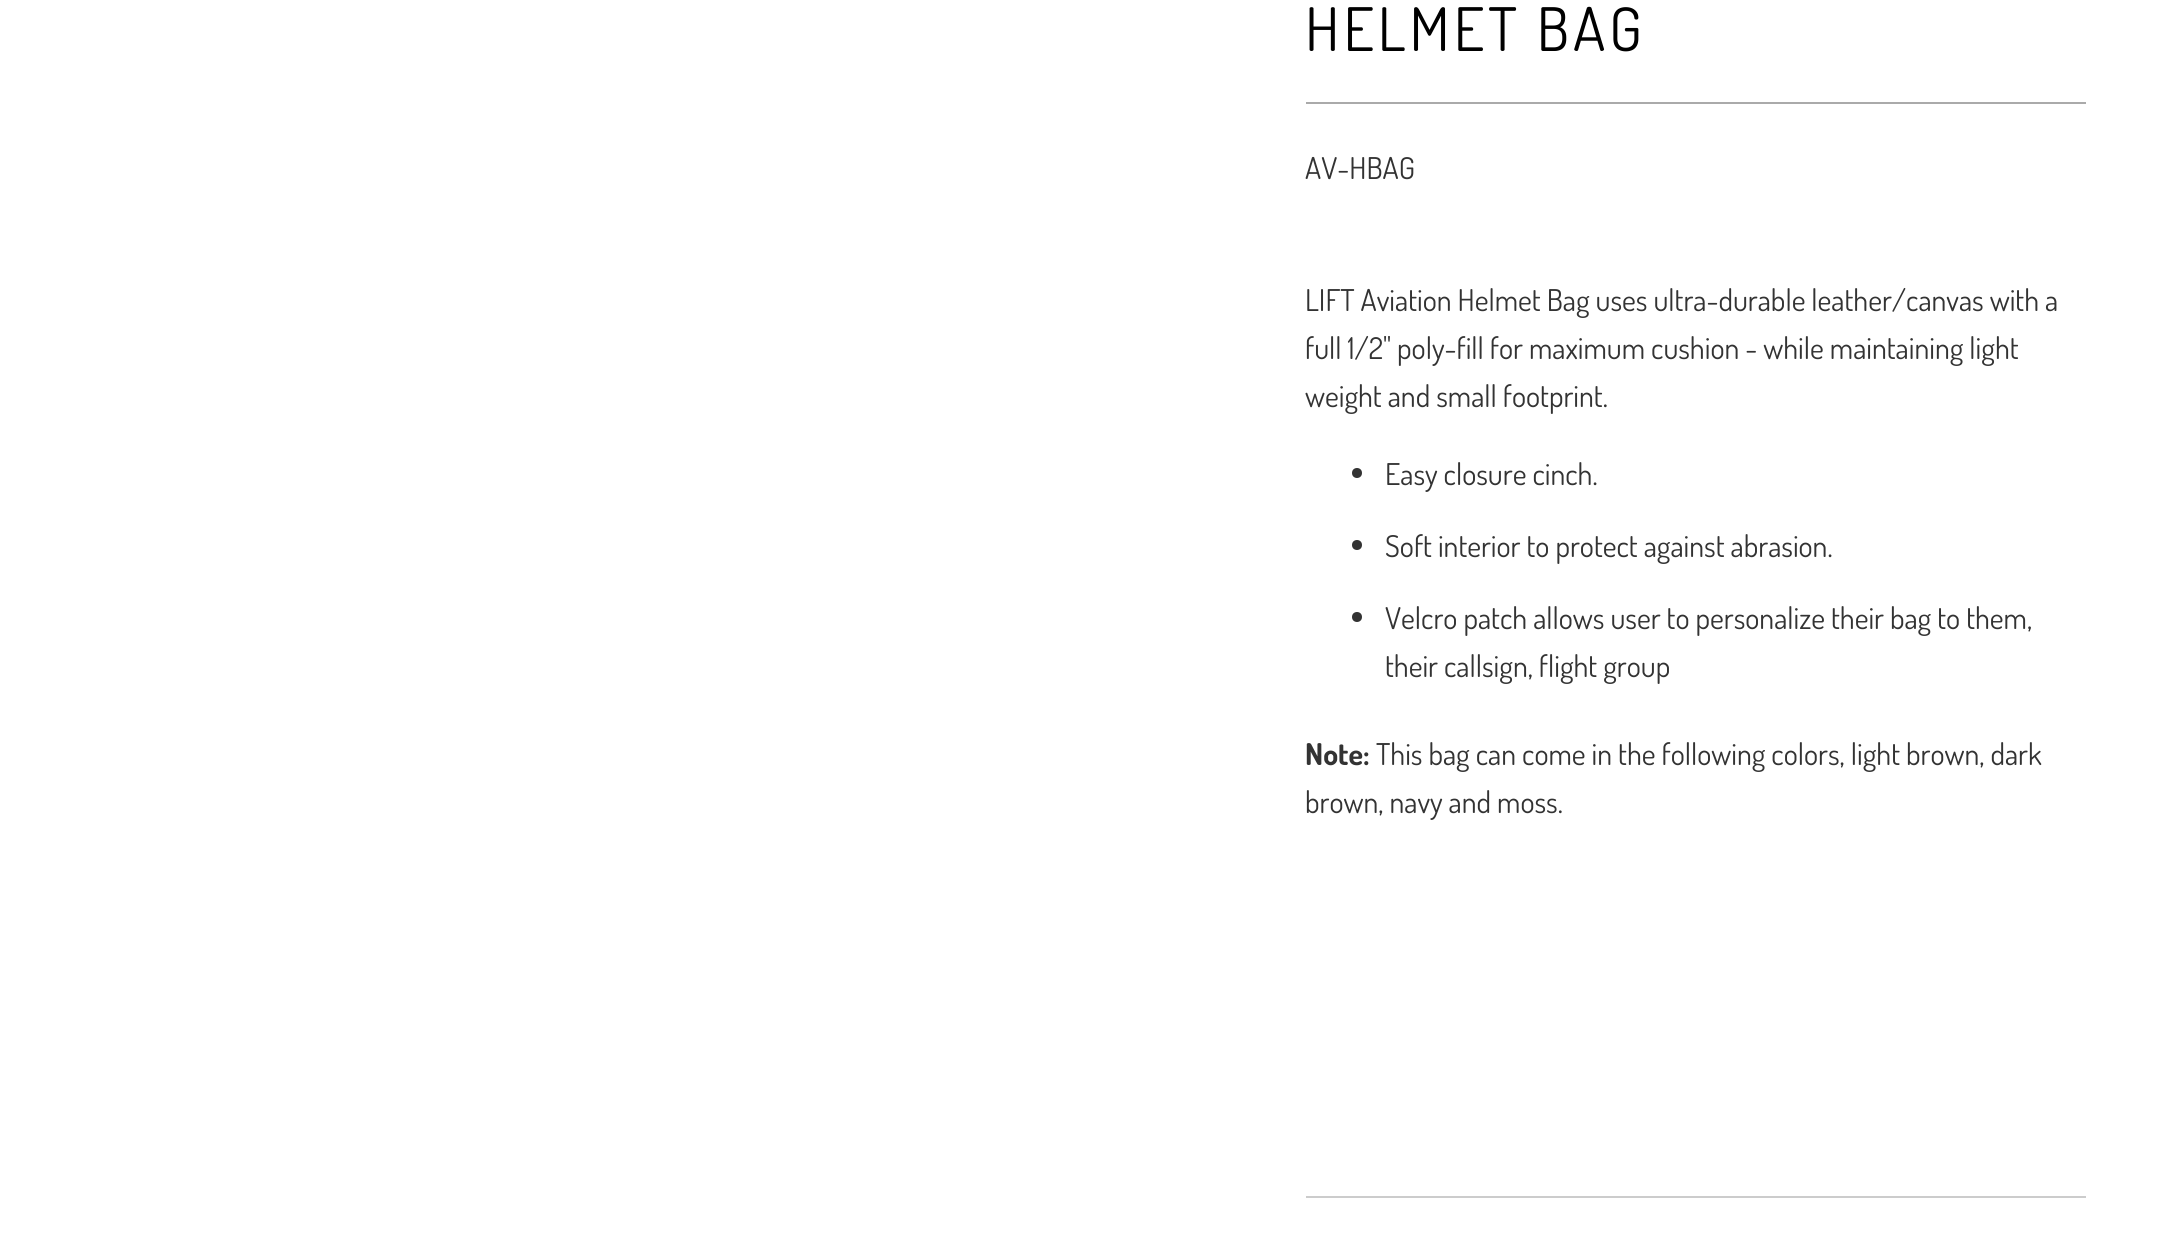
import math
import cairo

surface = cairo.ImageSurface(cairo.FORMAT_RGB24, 2160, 1237)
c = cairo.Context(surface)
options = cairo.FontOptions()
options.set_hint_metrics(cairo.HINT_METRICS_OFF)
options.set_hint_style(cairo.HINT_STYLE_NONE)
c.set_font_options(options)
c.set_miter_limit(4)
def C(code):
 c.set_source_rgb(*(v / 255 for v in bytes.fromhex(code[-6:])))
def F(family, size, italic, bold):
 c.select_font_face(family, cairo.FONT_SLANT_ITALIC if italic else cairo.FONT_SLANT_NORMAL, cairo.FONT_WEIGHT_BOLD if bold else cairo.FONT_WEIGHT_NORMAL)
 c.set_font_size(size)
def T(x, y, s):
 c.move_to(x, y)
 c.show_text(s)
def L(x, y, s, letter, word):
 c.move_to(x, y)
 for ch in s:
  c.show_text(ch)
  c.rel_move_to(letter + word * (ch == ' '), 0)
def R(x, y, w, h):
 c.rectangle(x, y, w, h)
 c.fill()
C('ffffff')
c.paint()
F('Dosis',60,0,0)
C('000000')
L(1305,51,'HELMET BAG',4,0)
C('aaaaaa')
R(1306,102,780,2)
F('Dosis',30,0,0)
C('333333')
T(1305,179,'AV-HBAG')
T(1305,311,'LIFT Aviation Helmet Bag uses ultra-durable leather/canvas with a')
T(1305,359,'full 1/2" poly-fill for maximum cushion - while maintaining light')
T(1305,407,'weight and small footprint.')
c.new_path()
c.arc(1357,473,5,0,2 * math.pi)
c.fill()
T(1385,485,'Easy closure cinch.')
c.new_path()
c.arc(1357,545,5,0,2 * math.pi)
c.fill()
T(1385,557,'Soft interior to protect against abrasion.')
c.new_path()
c.arc(1357,617,5,0,2 * math.pi)
c.fill()
T(1385,629,'Velcro patch allows user to personalize their bag to them,')
T(1385,677,'their callsign, flight group')
F('Dosis',30,0,1)
T(1305,765,'Note:')
F('Dosis',30,0,0)
T(1376,765,'This bag can come in the following colors, light brown, dark')
T(1305,813,'brown, navy and moss.')
C('cccccc')
R(1306,1196,780,2)
surface.write_to_png('o.png')
